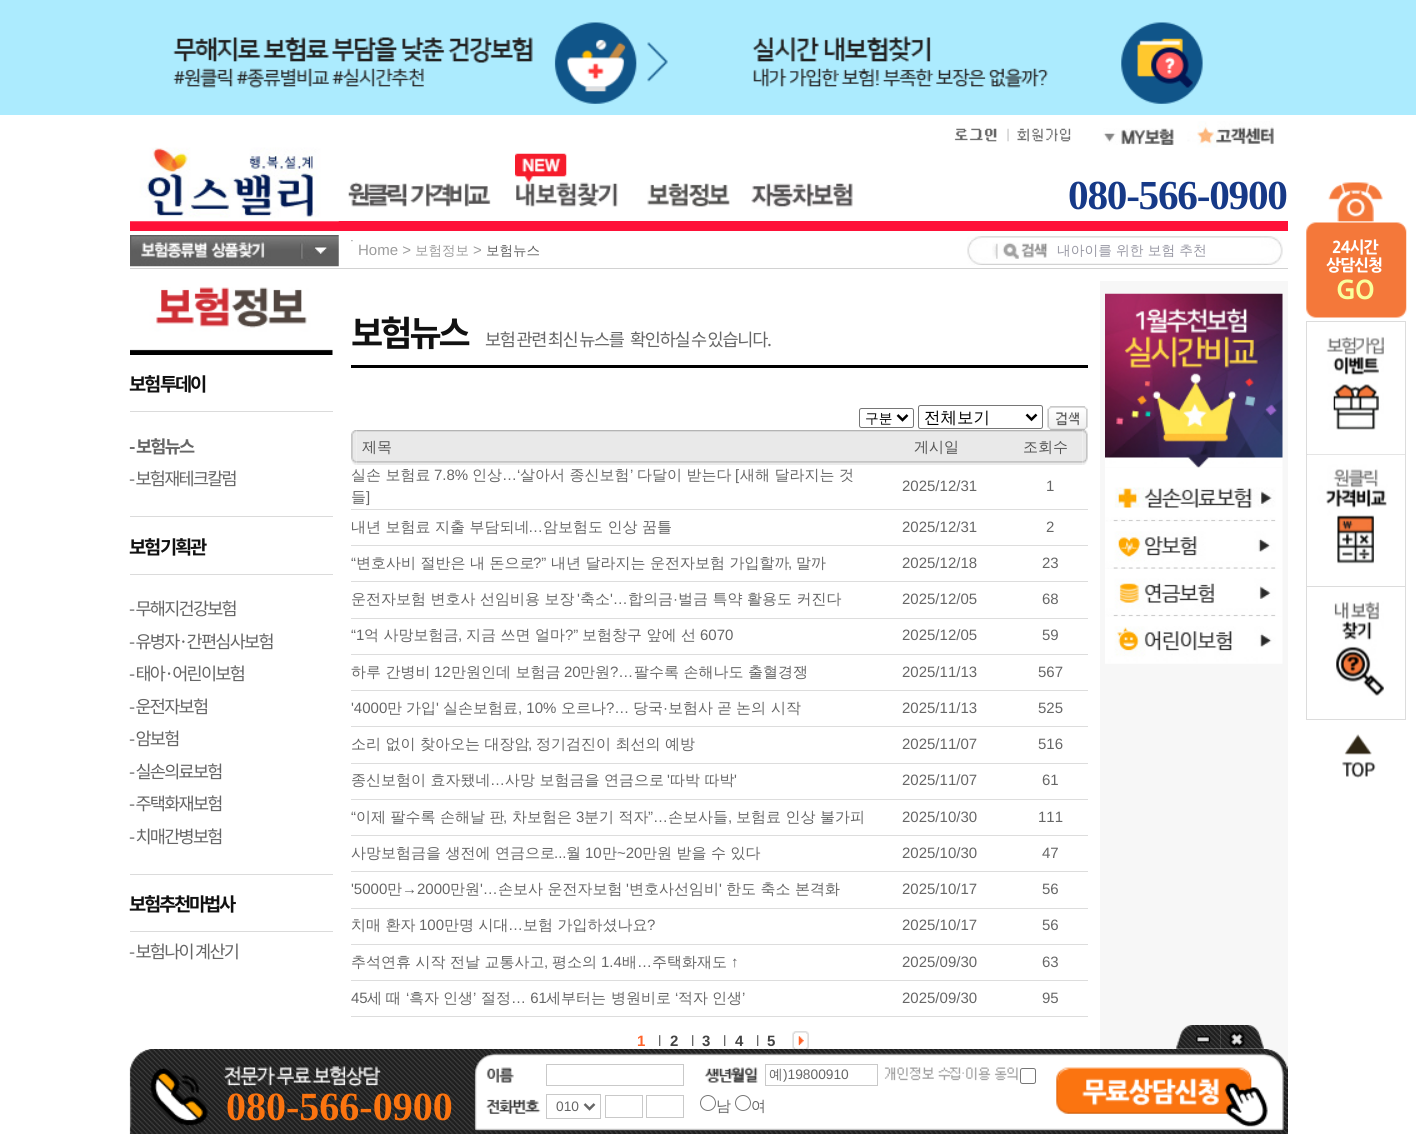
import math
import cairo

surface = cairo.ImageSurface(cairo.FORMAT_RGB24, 1416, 1134)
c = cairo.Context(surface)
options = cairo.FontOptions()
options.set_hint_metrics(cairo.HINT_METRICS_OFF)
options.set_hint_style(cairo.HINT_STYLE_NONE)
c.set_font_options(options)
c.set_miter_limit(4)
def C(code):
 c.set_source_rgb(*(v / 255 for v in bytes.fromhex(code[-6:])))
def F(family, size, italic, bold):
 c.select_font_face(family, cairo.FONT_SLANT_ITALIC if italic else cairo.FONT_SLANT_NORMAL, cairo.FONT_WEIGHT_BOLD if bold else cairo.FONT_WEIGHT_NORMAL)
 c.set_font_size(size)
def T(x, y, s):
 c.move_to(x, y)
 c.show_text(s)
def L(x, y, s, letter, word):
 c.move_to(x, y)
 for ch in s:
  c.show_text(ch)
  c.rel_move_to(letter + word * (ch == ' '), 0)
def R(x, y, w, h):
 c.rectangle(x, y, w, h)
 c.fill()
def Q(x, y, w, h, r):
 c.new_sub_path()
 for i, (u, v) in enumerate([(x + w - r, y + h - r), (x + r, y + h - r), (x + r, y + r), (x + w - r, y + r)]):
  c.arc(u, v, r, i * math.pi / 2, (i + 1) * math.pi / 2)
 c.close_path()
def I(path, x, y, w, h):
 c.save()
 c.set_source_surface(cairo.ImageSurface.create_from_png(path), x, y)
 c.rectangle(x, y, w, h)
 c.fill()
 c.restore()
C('ffffff')
c.paint()
C('acebfe')
R(0,0,1416,115)
I('1.png',173,22,495,82)
I('2.png',752,22,451,82)
I('3.png',954,128,55,14)
I('4.png',1008,128,63,14)
I('5.png',1103,128,71,17)
I('6.png',1187,121,87,27)
C('fe1138')
R(130,221,1158,10)
I('7.png',130,147,209,75)
I('8.png',348,182,143,25)
I('10.png',516,182,102,25)
I('9.png',515,153,52,30)
I('11.png',647,183,83,24)
I('12.png',751,183,102,26)
F('Liberation Serif',41.25,0,1)
C('163987')
L(1068,209,'080-566-0900',-1.25,0)
I('13.png',130,235,209,32)
I('14.png',351,240,2,2)
F('Liberation Sans',15,0,0)
C('9c9c9c')
T(358,255,'Home >')
F('WenQuanYi Zen Hei Medium',13.5,0,0)
T(415,255,'보험정보')
F('Liberation Sans',15,0,0)
T(473,255,'>')
F('WenQuanYi Zen Hei Medium',13.5,0,0)
C('606060')
T(486,255,'보험뉴스')
I('15.png',967,236,316,29)
I('16.png',992,242,56,17)
F('WenQuanYi Zen Hei Medium',13.75,0,0)
C('9797a3')
T(1057,255,'내아이를 위한 보험 추천')
C('d2d2d2')
R(130,268,1158,1)
I('17.png',130,287,203,68)
C('dbdbdb')
R(130,411,203,1)
F('Noto Sans KR',18.75,0,1)
C('111111')
L(129,391,'보험 투데이',-2.25,-1)
F('Noto Sans KR',17.5,0,1)
C('666666')
L(129,453,'- 보험뉴스',-1.75,0)
F('Noto Sans KR',17.5,0,0)
L(129,485,'- 보험재테크칼럼',-1.75,0)
C('dbdbdb')
R(130,516,203,1)
R(130,574,203,1)
F('Noto Sans KR',18.75,0,1)
C('111111')
L(129,554,'보험 기획관',-2.25,-1)
F('Noto Sans KR',17.5,0,0)
C('666666')
L(129,615,'- 무해지건강보험',-1.75,0)
L(129,648,'- 유병자·간편심사보험',-1.75,0)
L(129,680,'- 태아·어린이보험',-1.75,0)
L(129,713,'- 운전자보험',-1.75,0)
L(129,745,'- 암보험',-1.75,0)
L(129,778,'- 실손의료보험',-1.75,0)
L(129,810,'- 주택화재보험',-1.75,0)
L(129,843,'- 치매간병보험',-1.75,0)
C('dbdbdb')
R(130,874,203,1)
R(130,931,203,1)
F('Noto Sans KR',18.75,0,1)
C('111111')
L(129,911,'보험추천마법사',-2.25,0)
F('Noto Sans KR',17.5,0,0)
C('666666')
L(129,958,'- 보험나이 계산기',-1.75,0)
C('000000')
R(351,365,737,3)
F('Noto Sans KR',35,0,1)
C('111111')
L(351,346,'보험뉴스',-3,0)
F('Noto Sans KR',17.5,0,0)
C('666666')
L(485,346,'보험 관련 최신 뉴스를',-1.25,-1)
L(630,346,'확인하실 수 있습니다.',-1.25,-1)
Q(859.5,408.5,54,19,2)
C('767676')
c.set_line_width(1)
c.stroke()
c.new_path()
c.move_to(897.5,415)
c.line_to(902.5,420)
c.line_to(907.5,415)
C('000000')
c.set_line_width(2.5)
c.stroke()
F('WenQuanYi Zen Hei Medium',13.75,0,0)
T(865,423,'구분')
Q(918.5,405.5,124,23,2)
C('767676')
c.set_line_width(1)
c.stroke()
c.new_path()
c.move_to(1026.5,414.5)
c.line_to(1031.5,419.5)
c.line_to(1036.5,414.5)
C('000000')
c.set_line_width(2.5)
c.stroke()
F('WenQuanYi Zen Hei Medium',16.5,0,0)
T(924,423,'전체보기')
I('18.png',1047,406,41,24)
I('19.png',351,430,5,35)
I('20.png',356,430,727,35)
F('WenQuanYi Zen Hei Medium',15,0,0)
C('555555')
T(362,452,'제목')
T(914,452,'게시일')
T(1023,452,'조회수')
I('21.png',1082,430,6,35)
C('666666')
T(351,480,'실손 보험료')
F('Liberation Sans',15,0,0)
T(434,480,'7.8%')
F('WenQuanYi Zen Hei Medium',15,0,0)
T(472,480,'인상')
F('Liberation Sans',15,0,0)
T(502,480,'…‘')
F('WenQuanYi Zen Hei Medium',15,0,0)
T(520,480,'살아서 종신보험')
F('Liberation Sans',15,0,0)
T(630,480,'’')
F('WenQuanYi Zen Hei Medium',15,0,0)
T(637,480,'다달이 받는다')
F('Liberation Sans',15,0,0)
T(735,480,'[')
F('WenQuanYi Zen Hei Medium',15,0,0)
T(740,480,'새해 달라지는 것')
T(351,502,'들')
F('Liberation Sans',15,0,0)
T(366,502,']')
T(902,491,'2025/12/31')
T(1046,491,'1')
C('dddddd')
R(351,509,737,1)
F('WenQuanYi Zen Hei Medium',15,0,0)
C('666666')
T(351,532,'내년 보험료 지출 부담되네')
F('Liberation Sans',15,0,0)
T(528,532,'…')
F('WenQuanYi Zen Hei Medium',15,0,0)
T(543,532,'암보험도 인상 꿈틀')
F('Liberation Sans',15,0,0)
T(902,532,'2025/12/31')
T(1046,532,'2')
C('dddddd')
R(351,545,737,1)
C('666666')
T(351,568,'“')
F('WenQuanYi Zen Hei Medium',15,0,0)
T(356,568,'변호사비 절반은 내 돈으로')
F('Liberation Sans',15,0,0)
T(533,568,'?”')
F('WenQuanYi Zen Hei Medium',15,0,0)
T(551,568,'내년 달라지는 운전자보험 가입할까')
F('Liberation Sans',15,0,0)
T(788,568,',')
F('WenQuanYi Zen Hei Medium',15,0,0)
T(796,568,'말까')
F('Liberation Sans',15,0,0)
T(902,568,'2025/12/18')
T(1042,568,'23')
C('dddddd')
R(351,581,737,1)
F('WenQuanYi Zen Hei Medium',15,0,0)
C('666666')
T(351,604,'운전자보험 변호사 선임비용 보장')
F('Liberation Sans',15,0,0)
T(577,604,'\'')
F('WenQuanYi Zen Hei Medium',15,0,0)
T(580,604,'축소')
F('Liberation Sans',15,0,0)
T(610,604,'\'…')
F('WenQuanYi Zen Hei Medium',15,0,0)
T(628,604,'합의금')
F('Liberation Sans',15,0,0)
T(673,604,'·')
F('WenQuanYi Zen Hei Medium',15,0,0)
T(678,604,'벌금 특약 활용도 커진다')
F('Liberation Sans',15,0,0)
T(902,604,'2025/12/05')
T(1042,604,'68')
C('dddddd')
R(351,618,737,1)
C('666666')
T(351,640,'“1')
F('WenQuanYi Zen Hei Medium',15,0,0)
T(364,640,'억 사망보험금')
F('Liberation Sans',15,0,0)
T(458,640,',')
F('WenQuanYi Zen Hei Medium',15,0,0)
T(466,640,'지금 쓰면 얼마')
F('Liberation Sans',15,0,0)
T(565,640,'?”')
F('WenQuanYi Zen Hei Medium',15,0,0)
T(582,640,'보험창구 앞에 선')
F('Liberation Sans',15,0,0)
T(700,640,'6070')
T(902,640,'2025/12/05')
T(1042,640,'59')
C('dddddd')
R(351,654,737,1)
F('WenQuanYi Zen Hei Medium',15,0,0)
C('666666')
T(351,677,'하루 간병비')
F('Liberation Sans',15,0,0)
T(434,677,'12')
F('WenQuanYi Zen Hei Medium',15,0,0)
T(451,677,'만원인데 보험금')
F('Liberation Sans',15,0,0)
T(564,677,'20')
F('WenQuanYi Zen Hei Medium',15,0,0)
T(580,677,'만원')
F('Liberation Sans',15,0,0)
T(610,677,'?…')
F('WenQuanYi Zen Hei Medium',15,0,0)
T(634,677,'팔수록 손해나도 출혈경쟁')
F('Liberation Sans',15,0,0)
T(902,677,'2025/11/13')
T(1038,677,'567')
C('dddddd')
R(351,690,737,1)
C('666666')
T(351,713,'\'4000')
F('WenQuanYi Zen Hei Medium',15,0,0)
T(387,713,'만')
T(406,713,'가입')
F('Liberation Sans',15,0,0)
T(436,713,'\'')
F('WenQuanYi Zen Hei Medium',15,0,0)
T(443,713,'실손보험료')
F('Liberation Sans',15,0,0)
T(518,713,', 10%')
F('WenQuanYi Zen Hei Medium',15,0,0)
T(561,713,'오르나')
F('Liberation Sans',15,0,0)
T(606,713,'?…')
F('WenQuanYi Zen Hei Medium',15,0,0)
T(633,713,'당국')
F('Liberation Sans',15,0,0)
T(663,713,'·')
F('WenQuanYi Zen Hei Medium',15,0,0)
T(668,713,'보험사')
T(717,713,'곧')
T(736,713,'논의')
T(771,713,'시작')
F('Liberation Sans',15,0,0)
T(902,713,'2025/11/13')
T(1038,713,'525')
C('dddddd')
R(351,726,737,1)
F('WenQuanYi Zen Hei Medium',15,0,0)
C('666666')
T(351,749,'소리 없이 찾아오는 대장암')
F('Liberation Sans',15,0,0)
T(528,749,',')
F('WenQuanYi Zen Hei Medium',15,0,0)
T(536,749,'정기검진이 최선의 예방')
F('Liberation Sans',15,0,0)
T(902,749,'2025/11/07')
T(1038,749,'516')
C('dddddd')
R(351,763,737,1)
F('WenQuanYi Zen Hei Medium',15,0,0)
C('666666')
T(351,785,'종신보험이 효자됐네')
T(505,785,'사망 보험금을 연금으로')
F('Liberation Sans',15,0,0)
T(667,785,'\'')
F('WenQuanYi Zen Hei Medium',15,0,0)
T(670,785,'따박 따박')
F('Liberation Sans',15,0,0)
T(734,785,'\'')
T(490,785,'…')
T(902,785,'2025/11/07')
T(1042,785,'61')
C('dddddd')
R(351,799,737,1)
C('666666')
T(351,822,'“')
F('WenQuanYi Zen Hei Medium',15,0,0)
T(356,822,'이제 팔수록 손해날 판')
F('Liberation Sans',15,0,0)
T(503,822,',')
F('WenQuanYi Zen Hei Medium',15,0,0)
T(512,822,'차보험은')
F('Liberation Sans',15,0,0)
T(576,822,'3')
F('WenQuanYi Zen Hei Medium',15,0,0)
T(584,822,'분기 적자')
F('Liberation Sans',15,0,0)
T(648,822,'”…')
F('WenQuanYi Zen Hei Medium',15,0,0)
T(668,822,'손보사들')
F('Liberation Sans',15,0,0)
T(728,822,',')
F('WenQuanYi Zen Hei Medium',15,0,0)
T(736,822,'보험료 인상 불가피')
F('Liberation Sans',15,0,0)
T(902,822,'2025/10/30')
T(1038,822,'111')
C('dddddd')
R(351,835,737,1)
F('WenQuanYi Zen Hei Medium',15,0,0)
C('666666')
T(351,858,'사망보험금을 생전에 연금으로')
F('Liberation Sans',15,0,0)
T(554,858,'...')
F('WenQuanYi Zen Hei Medium',15,0,0)
T(566,858,'월')
F('Liberation Sans',15,0,0)
T(585,858,'10')
F('WenQuanYi Zen Hei Medium',15,0,0)
T(602,858,'만')
F('Liberation Sans',15,0,0)
T(617,858,'~20')
F('WenQuanYi Zen Hei Medium',15,0,0)
T(642,858,'만원 받을 수 있다')
F('Liberation Sans',15,0,0)
T(902,858,'2025/10/30')
T(1042,858,'47')
C('dddddd')
R(351,871,737,1)
C('666666')
T(351,894,'\'5000')
F('WenQuanYi Zen Hei Medium',15,0,0)
T(387,894,'만')
F('Liberation Sans',15,0,0)
T(402,894,'→2000')
F('WenQuanYi Zen Hei Medium',15,0,0)
T(450,894,'만원')
F('Liberation Sans',15,0,0)
T(480,894,'\'…')
F('WenQuanYi Zen Hei Medium',15,0,0)
T(498,894,'손보사 운전자보험')
F('Liberation Sans',15,0,0)
T(626,894,'\'')
F('WenQuanYi Zen Hei Medium',15,0,0)
T(629,894,'변호사선임비')
F('Liberation Sans',15,0,0)
T(719,894,'\'')
F('WenQuanYi Zen Hei Medium',15,0,0)
T(726,894,'한도 축소 본격화')
F('Liberation Sans',15,0,0)
T(902,894,'2025/10/17')
T(1042,894,'56')
C('dddddd')
R(351,908,737,1)
F('WenQuanYi Zen Hei Medium',15,0,0)
C('666666')
T(351,930,'치매 환자')
F('Liberation Sans',15,0,0)
T(419,930,'100')
F('WenQuanYi Zen Hei Medium',15,0,0)
T(444,930,'만명 시대')
F('Liberation Sans',15,0,0)
T(508,930,'…')
F('WenQuanYi Zen Hei Medium',15,0,0)
T(523,930,'보험 가입하셨나요')
F('Liberation Sans',15,0,0)
T(647,930,'?')
T(902,930,'2025/10/17')
T(1042,930,'56')
C('dddddd')
R(351,944,737,1)
F('WenQuanYi Zen Hei Medium',15,0,0)
C('666666')
T(351,967,'추석연휴 시작 전날 교통사고')
F('Liberation Sans',15,0,0)
T(544,967,',')
F('WenQuanYi Zen Hei Medium',15,0,0)
T(552,967,'평소의')
F('Liberation Sans',15,0,0)
T(601,967,'1.4')
F('WenQuanYi Zen Hei Medium',15,0,0)
T(622,967,'배')
F('Liberation Sans',15,0,0)
T(637,967,'…')
F('WenQuanYi Zen Hei Medium',15,0,0)
T(652,967,'주택화재도')
F('Liberation Sans',15,0,0)
T(731,967,'↑')
T(902,967,'2025/09/30')
T(1042,967,'63')
C('dddddd')
R(351,980,737,1)
C('666666')
T(351,1003,'45')
F('WenQuanYi Zen Hei Medium',15,0,0)
T(367,1003,'세')
T(386,1003,'때')
F('Liberation Sans',15,0,0)
T(406,1003,'‘')
F('WenQuanYi Zen Hei Medium',15,0,0)
T(409,1003,'흑자')
T(443,1003,'인생')
F('Liberation Sans',15,0,0)
T(473,1003,'’')
F('WenQuanYi Zen Hei Medium',15,0,0)
T(481,1003,'절정')
F('Liberation Sans',15,0,0)
T(511,1003,'… 61')
F('WenQuanYi Zen Hei Medium',15,0,0)
T(546,1003,'세부터는')
T(611,1003,'병원비로')
F('Liberation Sans',15,0,0)
T(675,1003,'‘')
F('WenQuanYi Zen Hei Medium',15,0,0)
T(678,1003,'적자')
T(712,1003,'인생')
F('Liberation Sans',15,0,0)
T(742,1003,'’')
T(902,1003,'2025/09/30')
T(1042,1003,'95')
C('dddddd')
R(351,1016,737,1)
F('Liberation Sans',15,0,1)
C('ff632a')
T(637,1046,'1')
F('Liberation Sans',15,0,0)
C('666666')
T(658,1046,'l')
F('Liberation Sans',15,0,1)
C('444444')
T(670,1046,'2')
F('Liberation Sans',15,0,0)
C('666666')
T(691,1046,'l')
F('Liberation Sans',15,0,1)
C('444444')
T(702,1046,'3')
F('Liberation Sans',15,0,0)
C('666666')
T(723,1046,'l')
F('Liberation Sans',15,0,1)
C('444444')
T(735,1046,'4')
F('Liberation Sans',15,0,0)
C('666666')
T(756,1046,'l')
F('Liberation Sans',15,0,1)
C('444444')
T(767,1046,'5')
I('22.png',792,1031,17,18)
C('f7f7f7')
R(1100,281,188,790)
I('23.png',1105,293,178,175)
I('24.png',1105,467,178,55)
I('25.png',1105,521,178,48)
I('26.png',1105,568,178,49)
I('27.png',1105,616,178,48)
I('28.png',1306,182,101,136)
F('NanumGothic ExtraBold',16,0,0)
C('ffffff')
L(1332,253,'24시간',-1,0)
L(1326,271,'상담신청',-1,0)
F('NanumGothic ExtraBold',25,0,0)
C('f9ff9c')
L(1336,299,'GO',-1,0)
C('dcdcdc')
R(1306,321,100,1)
R(1405,321,1,133)
R(1306,321,1,133)
I('29.png',1326,336,58,94)
R(1306,454,100,1)
R(1405,454,1,132)
R(1306,454,1,132)
I('30.png',1307,454,98,110)
c.rectangle(1306.5,586.5,99,133)
c.set_line_width(1)
c.stroke()
I('31.png',1334,601,50,95)
I('32.png',1342,734,34,44)
I('33.png',1176,1025,44,24)
I('34.png',1220,1025,44,24)
I('35.png',129,1049,1159,85)
I('36.png',486,1067,28,16)
c.rectangle(546.5,1064.5,137,21)
C('c9c9c9')
c.stroke()
I('37.png',704,1067,54,16)
c.rectangle(765.5,1064.5,112,21)
c.stroke()
F('WenQuanYi Zen Hei Medium',13.75,0,0)
C('666666')
T(769,1079,'예')
F('Liberation Sans',13.75,0,0)
T(783,1079,')19800910')
I('38.png',884,1067,134,14)
Q(1020.5,1068.5,15,15,2)
C('767676')
c.stroke()
I('39.png',1056,1067,212,60)
F('Liberation Serif',40,0,1)
C('fb7410')
T(226,1120,'080-566-0900')
I('40.png',486,1099,55,15)
c.rectangle(546.5,1094.5,54,24)
C('c9c9c9')
c.stroke()
c.new_path()
c.move_to(584.5,1104)
c.line_to(589.5,1109)
c.line_to(594.5,1104)
C('666666')
c.set_line_width(2.5)
c.stroke()
F('Liberation Sans',13.75,0,0)
T(556,1111,'010')
c.rectangle(605.5,1095.5,37,22)
C('c9c9c9')
c.set_line_width(1)
c.stroke()
c.rectangle(646.5,1095.5,37,22)
c.stroke()
c.arc(708,1103,7.5,0,2 * math.pi)
C('767676')
c.stroke()
F('WenQuanYi Zen Hei Medium',15,0,0)
C('666666')
T(716,1111,'남')
c.new_path()
c.arc(743,1103,7.5,0,2 * math.pi)
C('767676')
c.stroke()
C('666666')
T(751,1111,'여')
surface.write_to_png('o.png')
